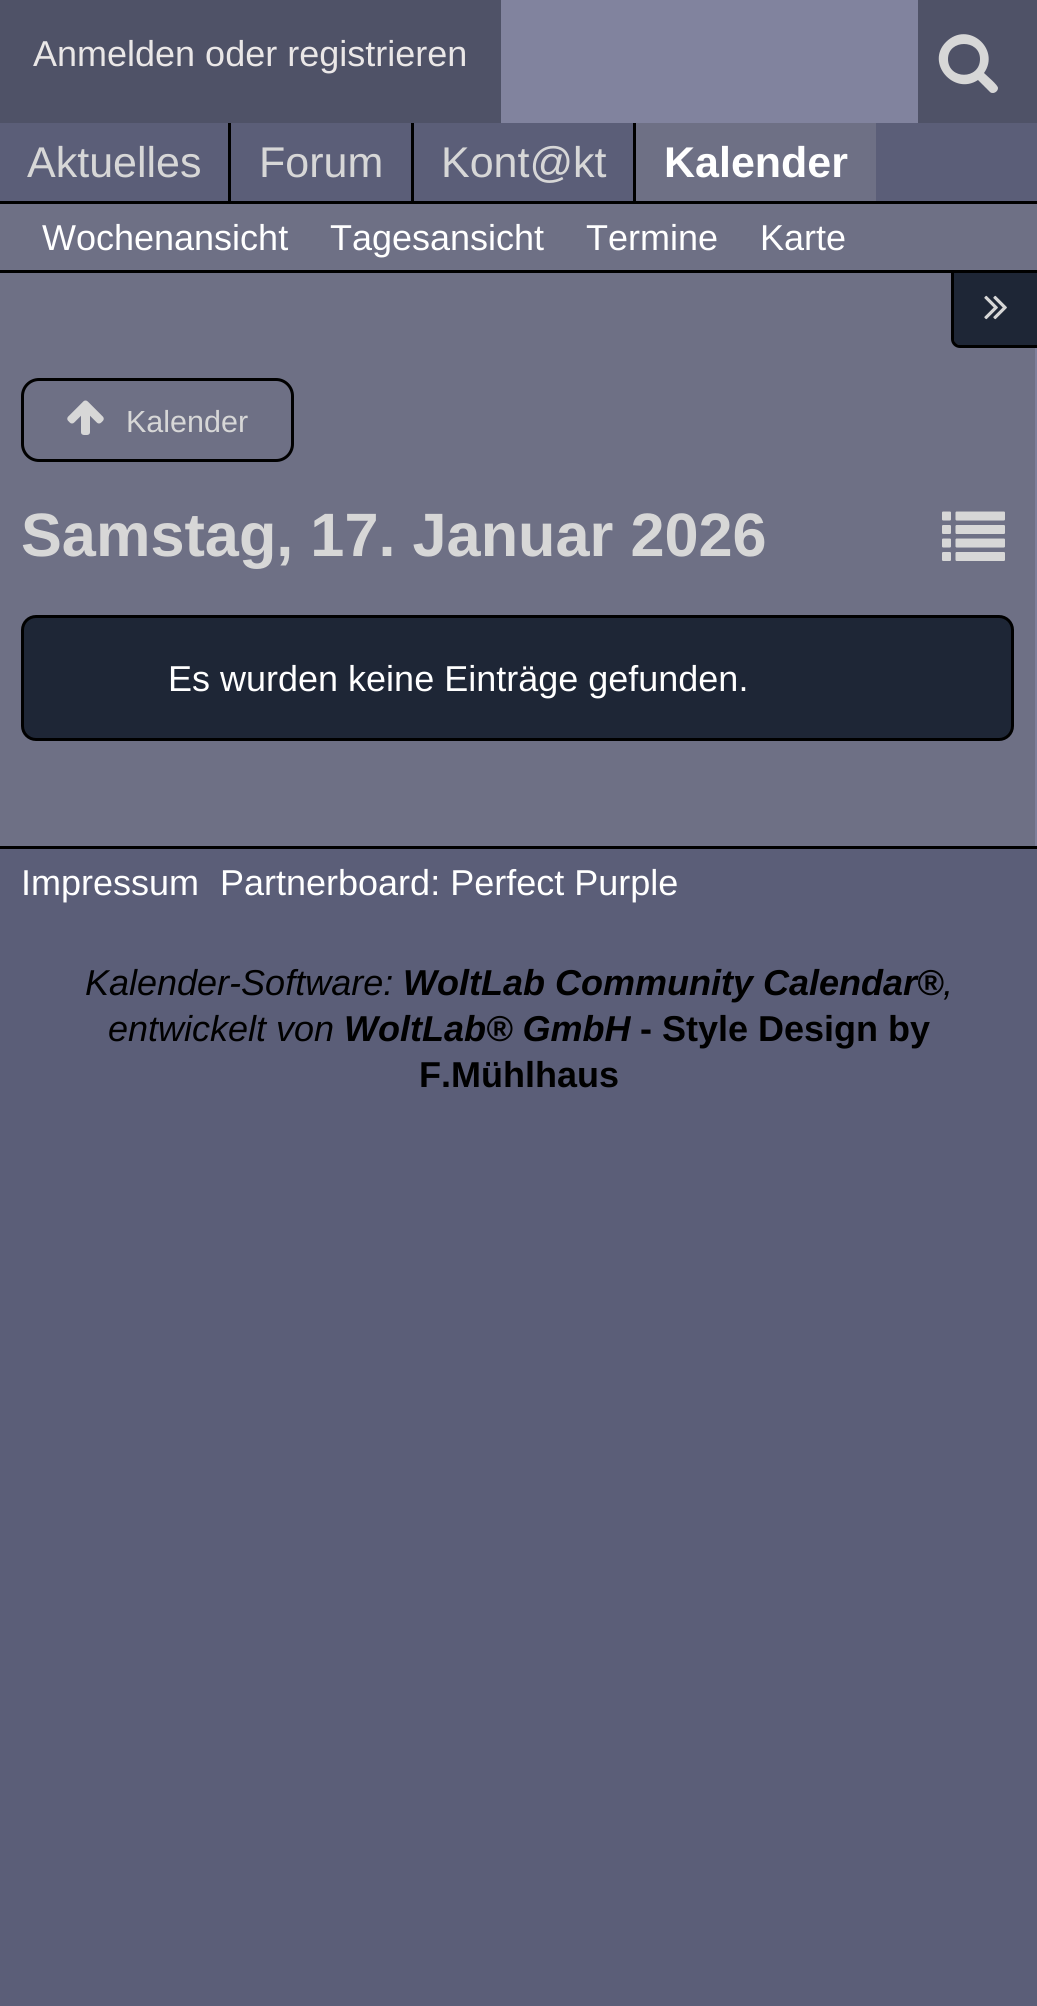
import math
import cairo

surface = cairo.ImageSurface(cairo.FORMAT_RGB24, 1037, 2006)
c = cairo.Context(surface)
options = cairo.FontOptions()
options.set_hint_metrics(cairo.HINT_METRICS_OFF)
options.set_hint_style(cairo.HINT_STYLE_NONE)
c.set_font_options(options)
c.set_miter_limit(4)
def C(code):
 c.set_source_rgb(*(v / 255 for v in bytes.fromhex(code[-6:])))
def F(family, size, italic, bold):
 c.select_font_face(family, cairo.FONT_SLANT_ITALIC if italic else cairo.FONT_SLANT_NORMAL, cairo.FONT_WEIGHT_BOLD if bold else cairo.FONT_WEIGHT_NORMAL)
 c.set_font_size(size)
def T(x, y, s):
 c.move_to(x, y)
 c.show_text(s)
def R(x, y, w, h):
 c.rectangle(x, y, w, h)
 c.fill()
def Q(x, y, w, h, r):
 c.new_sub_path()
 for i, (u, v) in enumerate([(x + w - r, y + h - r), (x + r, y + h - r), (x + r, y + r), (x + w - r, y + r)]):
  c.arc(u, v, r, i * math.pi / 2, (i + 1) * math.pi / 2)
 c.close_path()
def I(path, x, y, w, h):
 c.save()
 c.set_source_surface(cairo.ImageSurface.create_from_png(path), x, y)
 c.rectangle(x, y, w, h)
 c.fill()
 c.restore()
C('5b5e78')
c.paint()
C('81839e')
R(501,0,417,123)
C('4f5267')
R(0,0,501,123)
F('Liberation Sans',36,0,0)
C('eae7e7')
T(33,66,'Anmelden oder registrieren')
C('4f5267')
R(918,0,119,123)
C('d7d7d7')
c.new_path()
c.move_to(980,59)
c.curve_to(980,80,948,80,948,59)
c.curve_to(948,39,980,39,980,59)
c.close_path()
c.move_to(998,88)
c.curve_to(998,85,987,76,984,73)
c.curve_to(1001,49,968,20,946,42)
c.curve_to(925,63,954,96,978,80)
c.line_to(990,92)
c.curve_to(991,93,992,93,993,93)
c.curve_to(995,93,998,91,998,88)
c.close_path()
c.fill()
C('000000')
R(228,123,3,78)
F('Liberation Sans',43,0,0)
C('d7d7d7')
T(27,177,'Aktuelles')
C('000000')
R(411,123,3,78)
C('d7d7d7')
T(259,177,'Forum')
C('000000')
R(633,123,3,78)
C('d7d7d7')
T(441,177,'Kont@kt')
C('6e7085')
R(636,123,240,78)
F('Liberation Sans',43,0,1)
C('ffffff')
T(664,177,'Kalender')
C('6e7085')
R(0,204,1037,66)
C('000000')
R(0,201,1037,3)
R(0,270,1037,3)
F('Liberation Sans',36,0,0)
C('ffffff')
T(42,250,'Wochenansicht')
T(330,250,'Tagesansicht')
T(586,250,'Termine')
T(760,250,'Karte')
C('7e7f9a')
R(1035,348,2,498)
C('6e7085')
R(0,273,1035,573)
C('1e2636')
c.new_path()
c.move_to(954,273)
c.line_to(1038,273)
c.line_to(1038,345)
c.line_to(960,345)
c.curve_to(956.5,345,954,342.5,954,339)
c.close_path()
c.fill()
C('000000')
c.set_fill_rule(cairo.FILL_RULE_EVEN_ODD)
c.new_path()
c.move_to(951,273)
c.line_to(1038,273)
c.line_to(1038,348)
c.line_to(960,348)
c.curve_to(955,348,951,344,951,339)
c.close_path()
c.move_to(954,273)
c.line_to(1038,273)
c.line_to(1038,345)
c.line_to(960,345)
c.curve_to(957,345,954,342,954,339)
c.close_path()
c.fill()
I('1.png',984,295,23,25)
Q(22.5,379.5,270,81,16.5)
c.set_line_width(3)
c.stroke()
I('2.png',67,400,37,35)
F('Liberation Sans',30.5,0,0)
C('d7d7d7')
T(126,432,'Kalender')
F('Liberation Sans',61.25,0,1)
T(21,556,'Samstag, 17. Januar 2026')
I('3.png',942,511,63,50)
C('1e2636')
Q(22.5,616.5,990,123,13.5)
c.fill_preserve()
C('000000')
c.stroke()
F('Liberation Sans',36,0,0)
C('ffffff')
T(168,691,'Es wurden keine Einträge gefunden.')
C('000000')
R(0,846,1037,3)
C('ffffff')
T(21,895,'Impressum')
T(220,895,'Partnerboard: Perfect Purple')
F('Liberation Sans',36,1,0)
C('000000')
T(85,995,'Kalender-Software:')
F('Liberation Sans',36,1,1)
T(403,995,'WoltLab Community Calendar®')
F('Liberation Sans',36,1,0)
T(943,995,',')
T(108,1041,'entwickelt von')
F('Liberation Sans',36,1,1)
T(344,1041,'WoltLab® GmbH')
F('Liberation Sans',36,0,1)
T(640,1041,'- Style Design by')
T(419,1087,'F.Mühlhaus')
surface.write_to_png('o.png')
